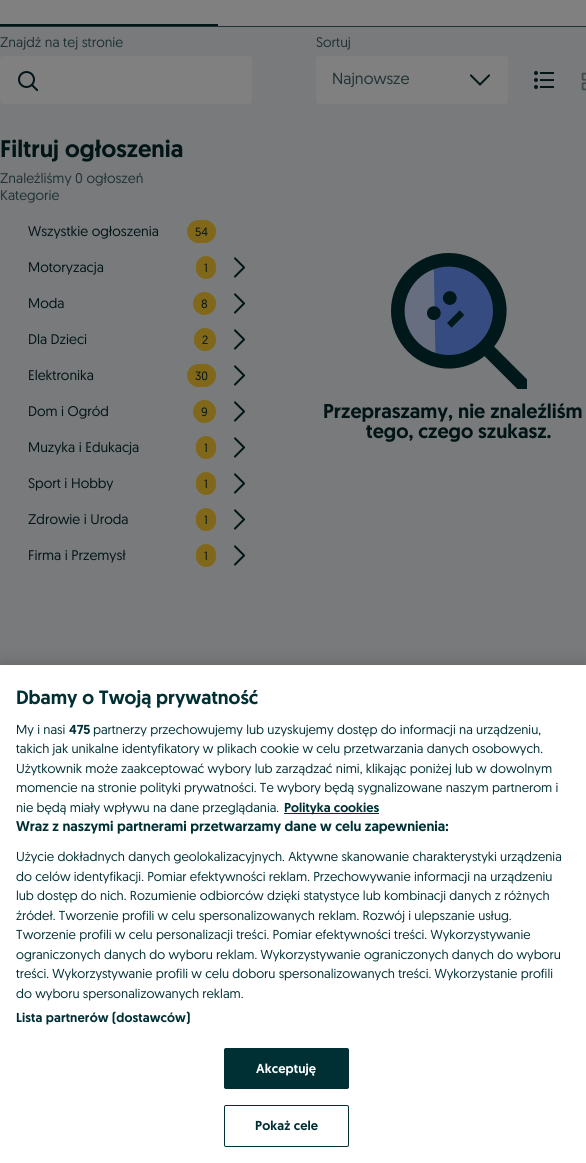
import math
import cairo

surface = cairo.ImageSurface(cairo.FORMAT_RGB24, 586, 1163)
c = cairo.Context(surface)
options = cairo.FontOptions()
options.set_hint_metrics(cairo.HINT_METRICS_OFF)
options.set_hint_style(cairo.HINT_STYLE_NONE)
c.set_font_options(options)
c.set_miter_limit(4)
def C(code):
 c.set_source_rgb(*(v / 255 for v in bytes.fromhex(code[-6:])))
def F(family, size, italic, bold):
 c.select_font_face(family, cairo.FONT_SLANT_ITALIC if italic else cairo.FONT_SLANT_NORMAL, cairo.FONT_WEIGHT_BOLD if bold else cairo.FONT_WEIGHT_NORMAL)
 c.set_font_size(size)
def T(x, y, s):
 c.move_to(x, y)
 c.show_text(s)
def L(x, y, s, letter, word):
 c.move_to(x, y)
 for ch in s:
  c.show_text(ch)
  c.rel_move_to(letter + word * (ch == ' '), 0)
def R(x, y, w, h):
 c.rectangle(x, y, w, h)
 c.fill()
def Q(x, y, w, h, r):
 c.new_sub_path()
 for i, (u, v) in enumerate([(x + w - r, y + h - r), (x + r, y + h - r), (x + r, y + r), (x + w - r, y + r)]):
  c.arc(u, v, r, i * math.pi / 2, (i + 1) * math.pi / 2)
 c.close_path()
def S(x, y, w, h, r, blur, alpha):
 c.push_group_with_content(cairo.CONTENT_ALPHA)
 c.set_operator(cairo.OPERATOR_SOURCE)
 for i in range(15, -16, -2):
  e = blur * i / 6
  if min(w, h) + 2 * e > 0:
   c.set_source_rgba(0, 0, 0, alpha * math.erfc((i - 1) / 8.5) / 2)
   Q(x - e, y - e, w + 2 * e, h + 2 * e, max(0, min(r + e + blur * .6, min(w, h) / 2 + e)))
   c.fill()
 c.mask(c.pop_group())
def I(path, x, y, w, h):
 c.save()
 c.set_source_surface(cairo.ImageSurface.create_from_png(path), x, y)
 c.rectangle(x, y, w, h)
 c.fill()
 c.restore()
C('797a7b')
c.paint()
C('808080')
R(0,0,586,26)
C('203234')
R(0,26,586,1)
C('011416')
R(0,24,218,2)
F('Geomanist',14,0,0)
C('203234')
T(0,47,'Znajdź na tej stronie')
C('808080')
Q(0,56,252,48,4)
c.fill()
I('1.png',18,71,20,20)
F('Geomanist Medium',24,0,0)
C('011416')
T(0,157,'Filtruj ogłoszenia')
F('Geomanist',14,0,0)
C('203234')
T(0,183,'Znaleźliśmy 0 ogłoszeń')
T(0,200,'Kategorie')
C('011416')
T(28,236,'Wszystkie ogłoszenia')
C('806719')
Q(187,220,29,23,11.5)
c.fill()
F('Geomanist',12,0,0)
C('011416')
T(195,236,'54')
F('Geomanist',14,0,0)
T(28,272,'Motoryzacja')
C('806719')
Q(196,256,20,23,10)
c.fill()
F('Geomanist',12,0,0)
C('011416')
T(204,272,'1')
I('2.png',234,257,12,21)
F('Geomanist',14,0,0)
T(28,308,'Moda')
C('806719')
c.new_path()
c.arc(204.5,303.5,11.5,0,2 * math.pi)
c.fill()
F('Geomanist',12,0,0)
C('011416')
T(201,308,'8')
I('2.png',234,293,12,21)
F('Geomanist',14,0,0)
T(28,344,'Dla Dzieci')
C('806719')
Q(194,328,22,23,11)
c.fill()
F('Geomanist',12,0,0)
C('011416')
T(202,344,'2')
I('2.png',234,329,12,21)
F('Geomanist',14,0,0)
T(28,380,'Elektronika')
C('806719')
Q(187,364,29,23,11.5)
c.fill()
F('Geomanist',12,0,0)
C('011416')
T(195,380,'30')
I('2.png',234,365,12,21)
F('Geomanist',14,0,0)
T(28,416,'Dom i Ogród')
C('806719')
c.new_path()
c.arc(204.5,411.5,11.5,0,2 * math.pi)
c.fill()
F('Geomanist',12,0,0)
C('011416')
T(201,416,'9')
I('2.png',234,401,12,21)
F('Geomanist',14,0,0)
T(28,452,'Muzyka i Edukacja')
C('806719')
Q(196,436,20,23,10)
c.fill()
F('Geomanist',12,0,0)
C('011416')
T(204,452,'1')
I('2.png',234,437,12,21)
F('Geomanist',14,0,0)
T(28,488,'Sport i Hobby')
C('806719')
Q(196,472,20,23,10)
c.fill()
F('Geomanist',12,0,0)
C('011416')
T(204,488,'1')
I('2.png',234,473,12,21)
F('Geomanist',14,0,0)
T(28,524,'Zdrowie i Uroda')
C('806719')
Q(196,508,20,23,10)
c.fill()
F('Geomanist',12,0,0)
C('011416')
T(204,524,'1')
I('2.png',234,509,12,21)
F('Geomanist',14,0,0)
T(28,560,'Firma i Przemysł')
C('806719')
Q(196,544,20,23,10)
c.fill()
F('Geomanist',12,0,0)
C('011416')
T(204,560,'1')
I('2.png',234,545,12,21)
F('Geomanist',14,0,0)
C('203234')
T(316,47,'Sortuj')
C('808080')
Q(316,56,192,48,4)
c.fill()
F('Geomanist',16,0,0)
C('203234')
T(332,84,'Najnowsze')
I('3.png',470,74,20,12)
I('4.png',534,71,20,18)
I('5.png',581,72,5,19)
I('6.png',391,253,136,136)
F('Geomanist Medium',20,0,0)
C('011416')
T(323,418,'Przepraszamy, nie znaleźliśm')
T(366,438,'tego, czego szukasz.')
C('000000')
S(0,665,586,498,0,9,.2)
C('ffffff')
R(0,665,586,498)
F('Geomanist Medium',19.25,0,0)
C('002f34')
T(16,704,'Dbamy o Twoją prywatność')
F('Geomanist',13,0,0)
T(16,734,'My i nasi')
F('Geomanist Medium',13,0,0)
T(69,734,'475')
F('Geomanist',13,0,0)
T(93,734,'partnerzy przechowujemy lub uzyskujemy dostęp do informacji na urządzeniu,')
T(16,753,'takich jak unikalne identyfikatory w plikach cookie w celu przetwarzania danych osobowych.')
T(16,773,'Użytkownik może zaakceptować wybory lub zarządzać nimi, klikając poniżej lub w dowolnym')
T(16,792,'momencie na stronie polityki prywatności. Te wybory będą sygnalizowane naszym partnerom i')
T(16,812,'nie będą miały wpływu na dane przeglądania.')
R(284,813,95,1)
F('Geomanist Medium',13,0,0)
T(284,812,'Polityka cookies')
F('Geomanist Medium',14.1,0,0)
T(16,831,'Wraz z naszymi partnerami przetwarzamy dane w celu zapewnienia:')
F('Geomanist',13,0,0)
T(16,861,'Użycie dokładnych danych geolokalizacyjnych. Aktywne skanowanie charakterystyki urządzenia')
T(16,881,'do celów identyfikacji. Pomiar efektywności reklam. Przechowywanie informacji na urządzeniu')
T(16,900,'lub dostęp do nich. Rozumienie odbiorców dzięki statystyce lub kombinacji danych z różnych')
T(16,920,'źródeł. Tworzenie profili w celu spersonalizowanych reklam. Rozwój i ulepszanie usług.')
T(16,939,'Tworzenie profili w celu personalizacji treści. Pomiar efektywności treści. Wykorzystywanie')
T(16,959,'ograniczonych danych do wyboru reklam. Wykorzystywanie ograniczonych danych do wyboru')
T(16,978,'treści. Wykorzystywanie profili w celu doboru spersonalizowanych treści. Wykorzystanie profili')
T(16,998,'do wyboru spersonalizowanych reklam.')
F('Geomanist Medium',13,0,0)
L(16,1022,'Lista partnerów (dostawców)',.1,0)
Q(224.5,1048.5,124,40,1.5)
c.fill_preserve()
c.set_line_width(1)
c.stroke()
C('ffffff')
L(256,1073,'Akceptuję',.1,0)
Q(224.5,1105.5,124,41,1.5)
C('002f34')
c.stroke()
L(255,1130,'Pokaż cele',.1,0)
surface.write_to_png('o.png')
